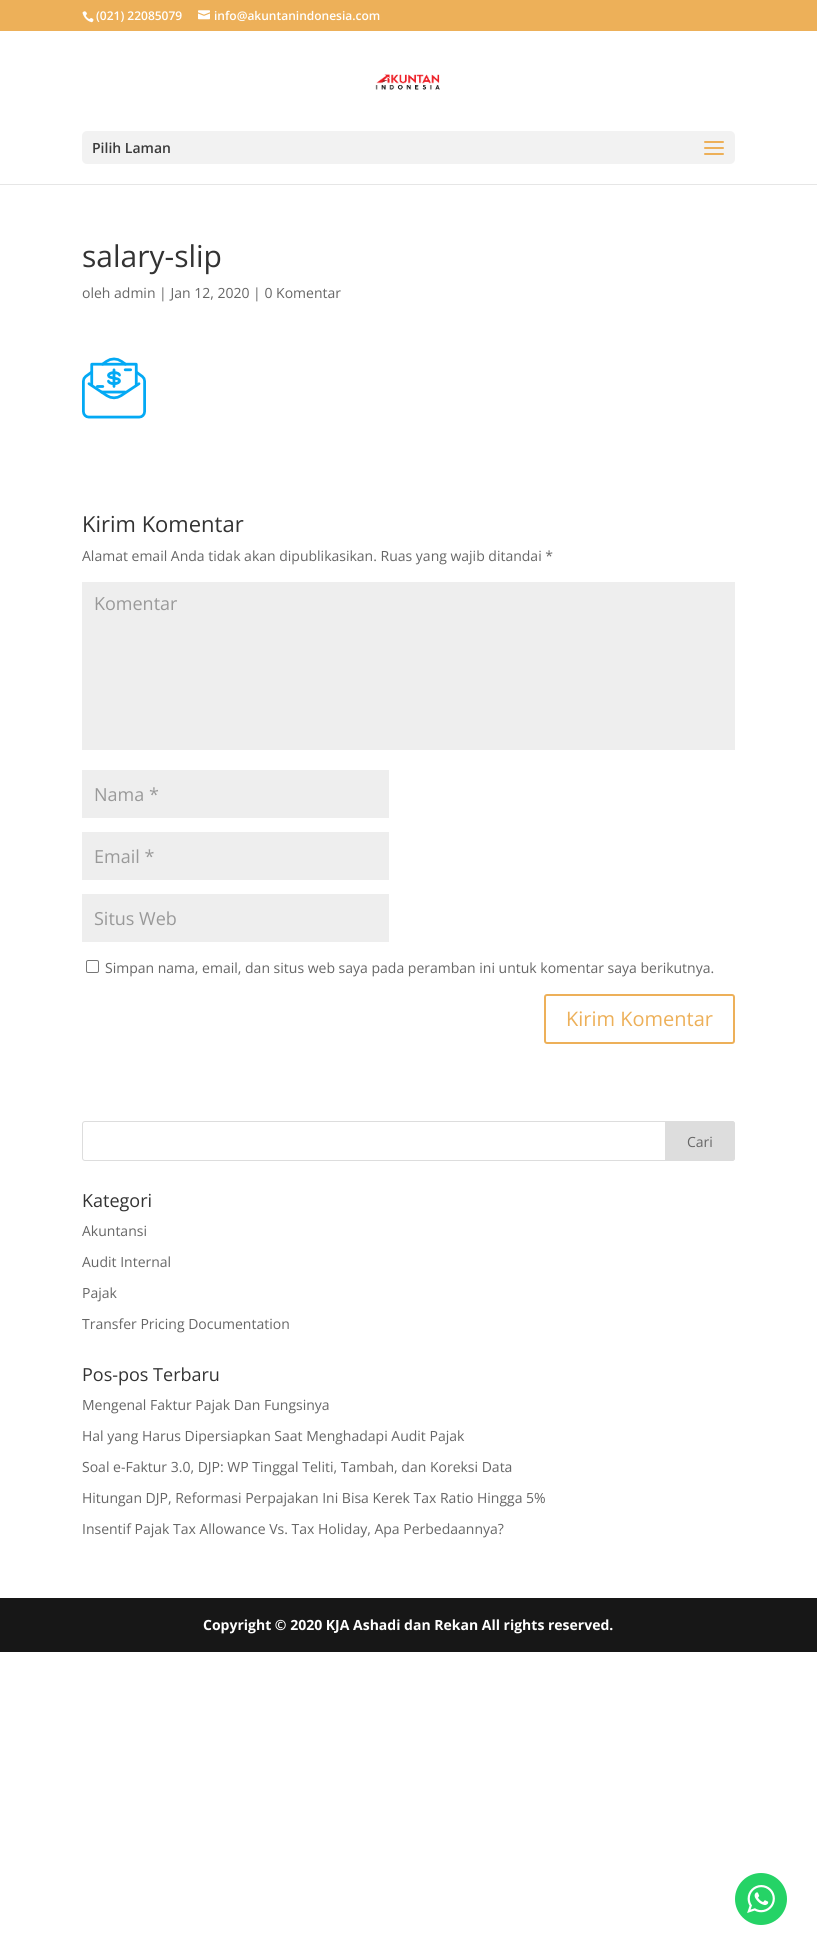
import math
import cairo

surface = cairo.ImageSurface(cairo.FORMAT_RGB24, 817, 1955)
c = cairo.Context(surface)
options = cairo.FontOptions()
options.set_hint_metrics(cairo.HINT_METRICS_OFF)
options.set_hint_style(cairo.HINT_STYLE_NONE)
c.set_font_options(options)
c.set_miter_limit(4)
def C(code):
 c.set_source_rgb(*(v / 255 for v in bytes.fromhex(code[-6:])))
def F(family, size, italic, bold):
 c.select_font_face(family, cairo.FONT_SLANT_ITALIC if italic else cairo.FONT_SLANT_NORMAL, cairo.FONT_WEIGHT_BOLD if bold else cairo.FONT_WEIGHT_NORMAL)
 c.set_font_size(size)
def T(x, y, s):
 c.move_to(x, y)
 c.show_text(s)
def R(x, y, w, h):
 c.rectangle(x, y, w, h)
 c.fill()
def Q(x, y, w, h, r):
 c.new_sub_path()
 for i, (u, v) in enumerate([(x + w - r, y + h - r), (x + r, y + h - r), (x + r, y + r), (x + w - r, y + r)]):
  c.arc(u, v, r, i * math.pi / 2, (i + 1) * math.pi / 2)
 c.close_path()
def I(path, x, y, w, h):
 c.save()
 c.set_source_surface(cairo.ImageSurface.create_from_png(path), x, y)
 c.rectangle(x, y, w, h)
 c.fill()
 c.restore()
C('ffffff')
c.paint()
C('edb059')
R(0,0,817,31)
I('1.png',82,11,12,12)
F('Open Sans SemiBold',12,0,0)
C('ffffff')
T(96,20,'(021) 22085079')
I('2.png',198,10,12,10)
T(214,20,'info@akuntanindonesia.com')
C('e6e6e6')
R(0,184,817,1)
I('3.png',375,74,65,16)
C('f2f2f2')
Q(82,131,653,33,5)
c.fill()
F('Open Sans SemiBold',14,0,0)
C('3a3a3a')
T(92,153,'Pilih Laman')
I('4.png',704,141,20,14)
F('Open Sans',30,0,0)
C('333333')
T(82,267,'salary-slip')
F('Open Sans',14,0,0)
C('666666')
T(82,298,'oleh admin | Jan 12, 2020 | 0 Komentar')
I('5.png',82,357,64,62)
F('Open Sans',22,0,0)
C('333333')
T(82,532,'Kirim Komentar')
F('Open Sans',14,0,0)
C('666666')
T(82,561,'Alamat email Anda tidak akan dipublikasikan. Ruas yang wajib ditandai *')
C('eeeeee')
R(82,582,653,168)
F('Open Sans',18,0,0)
C('999999')
T(94,610,'Komentar')
C('eeeeee')
R(82,770,307,48)
C('999999')
T(94,801,'Nama *')
C('eeeeee')
R(82,832,307,48)
C('999999')
T(94,863,'Email *')
C('eeeeee')
R(82,894,307,48)
C('999999')
T(94,925,'Situs Web')
Q(86.5,960.5,12,12,1.5)
C('767676')
c.set_line_width(1)
c.stroke()
F('Open Sans',14,0,0)
C('666666')
T(105,973,'Simpan nama, email, dan situs web saya pada peramban ini untuk komentar saya berikutnya.')
Q(545,995,189,48,2)
C('edb059')
c.set_line_width(2)
c.stroke()
F('Open Sans',20,0,0)
T(566,1026,'Kirim Komentar')
Q(82.5,1121.5,652,39,2.5)
C('dddddd')
c.set_line_width(1)
c.stroke()
c.new_path()
c.move_to(665.5,1121.5)
c.line_to(732,1121.5)
c.curve_to(733.5,1121.5,734.5,1122.5,734.5,1124)
c.line_to(734.5,1158)
c.curve_to(734.5,1159.5,733.5,1160.5,732,1160.5)
c.line_to(665.5,1160.5)
c.close_path()
c.fill_preserve()
c.stroke()
F('Open Sans',14,0,0)
C('666666')
T(687,1147,'Cari')
F('Open Sans',18,0,0)
C('333333')
T(82,1207,'Kategori')
F('Open Sans',14,0,0)
C('666666')
T(82,1236,'Akuntansi')
T(82,1267,'Audit Internal')
T(82,1298,'Pajak')
T(82,1329,'Transfer Pricing Documentation')
F('Open Sans',18,0,0)
C('333333')
T(82,1381,'Pos-pos Terbaru')
F('Open Sans',14,0,0)
C('666666')
T(82,1410,'Mengenal Faktur Pajak Dan Fungsinya')
T(82,1441,'Hal yang Harus Dipersiapkan Saat Menghadapi Audit Pajak')
T(82,1472,'Soal e-Faktur 3.0, DJP: WP Tinggal Teliti, Tambah, dan Koreksi Data')
T(82,1503,'Hitungan DJP, Reformasi Perpajakan Ini Bisa Kerek Tax Ratio Hingga 5%')
T(82,1534,'Insentif Pajak Tax Allowance Vs. Tax Holiday, Apa Perbedaannya?')
C('171717')
R(0,1598,817,54)
F('Open Sans',14,0,1)
C('ffffff')
T(203,1630,'Copyright © 2020 KJA Ashadi dan Rekan All rights reserved.')
C('25d366')
c.new_path()
c.arc(761,1899,26,0,2 * math.pi)
c.fill()
I('6.png',747,1885,28,28)
surface.write_to_png('o.png')
